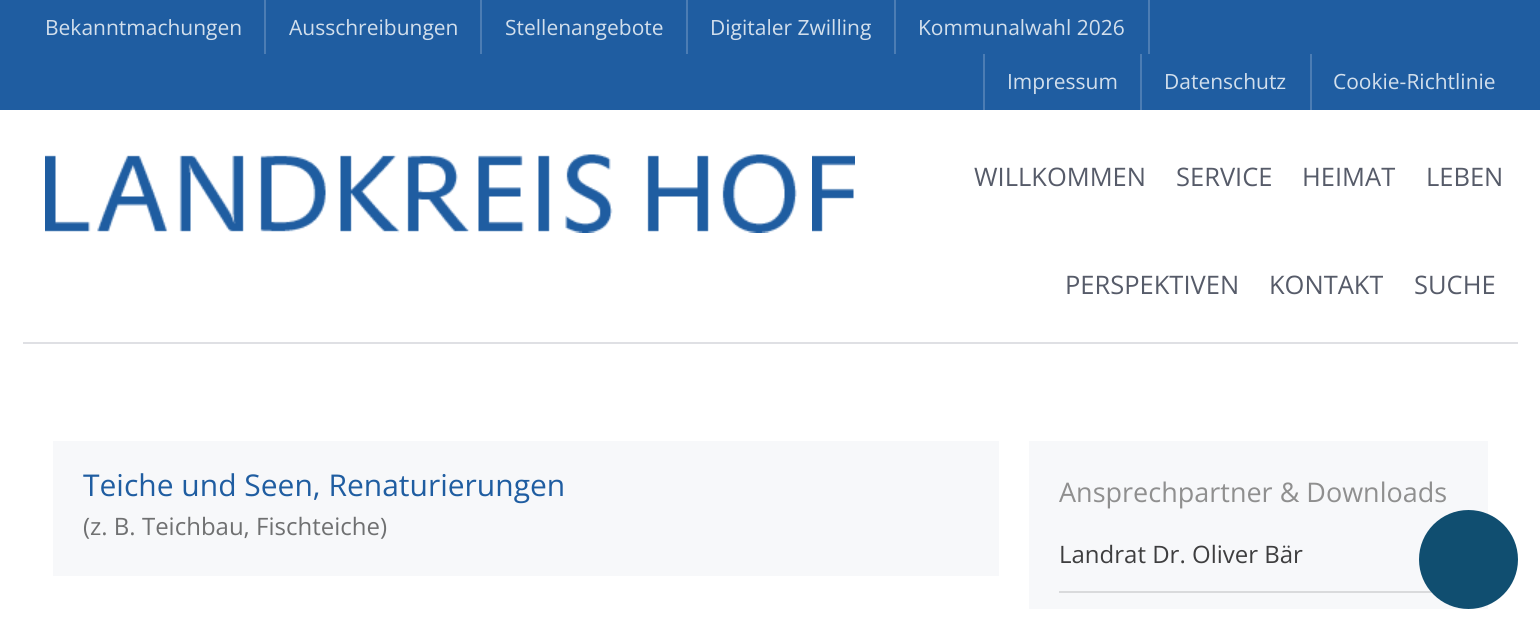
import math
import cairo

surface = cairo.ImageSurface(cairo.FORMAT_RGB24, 1540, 631)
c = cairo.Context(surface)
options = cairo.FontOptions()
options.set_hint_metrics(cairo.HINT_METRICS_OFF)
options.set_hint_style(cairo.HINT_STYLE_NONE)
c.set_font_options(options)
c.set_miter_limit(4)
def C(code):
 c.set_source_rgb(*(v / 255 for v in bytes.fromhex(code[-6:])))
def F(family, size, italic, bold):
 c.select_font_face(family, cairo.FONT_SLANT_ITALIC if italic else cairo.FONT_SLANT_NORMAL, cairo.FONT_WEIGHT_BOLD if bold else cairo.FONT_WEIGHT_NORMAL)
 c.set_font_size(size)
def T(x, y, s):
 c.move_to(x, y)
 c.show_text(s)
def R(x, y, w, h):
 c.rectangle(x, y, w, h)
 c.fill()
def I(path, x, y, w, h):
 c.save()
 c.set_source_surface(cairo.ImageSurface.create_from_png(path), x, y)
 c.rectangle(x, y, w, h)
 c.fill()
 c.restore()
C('ffffff')
c.paint()
C('1f5da1')
R(0,0,1540,110)
C('4c7db4')
R(264,0,2,54)
F('Open Sans',21,0,0)
C('d2dfec')
T(45,35,'Bekanntmachungen')
C('4c7db4')
R(480,0,2,54)
C('d2dfec')
T(289,35,'Ausschreibungen')
C('4c7db4')
R(686,0,2,54)
C('d2dfec')
T(505,35,'Stellenangebote')
C('4c7db4')
R(894,0,2,54)
C('d2dfec')
T(710,35,'Digitaler Zwilling')
C('4c7db4')
R(1148,0,2,54)
C('d2dfec')
T(918,35,'Kommunalwahl 2026')
C('4c7db4')
R(983,54,2,56)
C('d2dfec')
T(1007,89,'Impressum')
C('4c7db4')
R(1140,54,2,56)
C('d2dfec')
T(1164,89,'Datenschutz')
C('4c7db4')
R(1310,54,2,56)
C('d2dfec')
T(1333,89,'Cookie-Richtlinie')
C('dfe0e4')
R(23,342,1495,2)
I('1.png',45,154,810,79)
F('Open Sans',25.5,0,0)
C('565b69')
T(974,186,'WILLKOMMEN')
T(1176,186,'SERVICE')
T(1302,186,'HEIMAT')
T(1426,186,'LEBEN')
T(1065,294,'PERSPEKTIVEN')
T(1269,294,'KONTAKT')
T(1414,294,'SUCHE')
C('f7f8fa')
R(53,441,946,135)
F('Open Sans',30,0,0)
C('1f5da1')
T(83,496,'Teiche und Seen, Renaturierungen')
F('Open Sans',24,0,0)
C('6f7071')
T(83,535,'(z. B. Teichbau, Fischteiche)')
C('f7f8fa')
R(1029,441,459,168)
F('Open Sans',27,0,0)
C('8f8f8f')
T(1059,502,'Ansprechpartner & Downloads')
C('d9dadc')
R(1059,591,374,2)
F('Open Sans',24,0,0)
C('3e3e3f')
T(1059,563,'Landrat Dr. Oliver Bär')
C('104e70')
c.new_path()
c.arc(1468.5,559.5,49.5,0,2 * math.pi)
c.fill()
surface.write_to_png('o.png')
